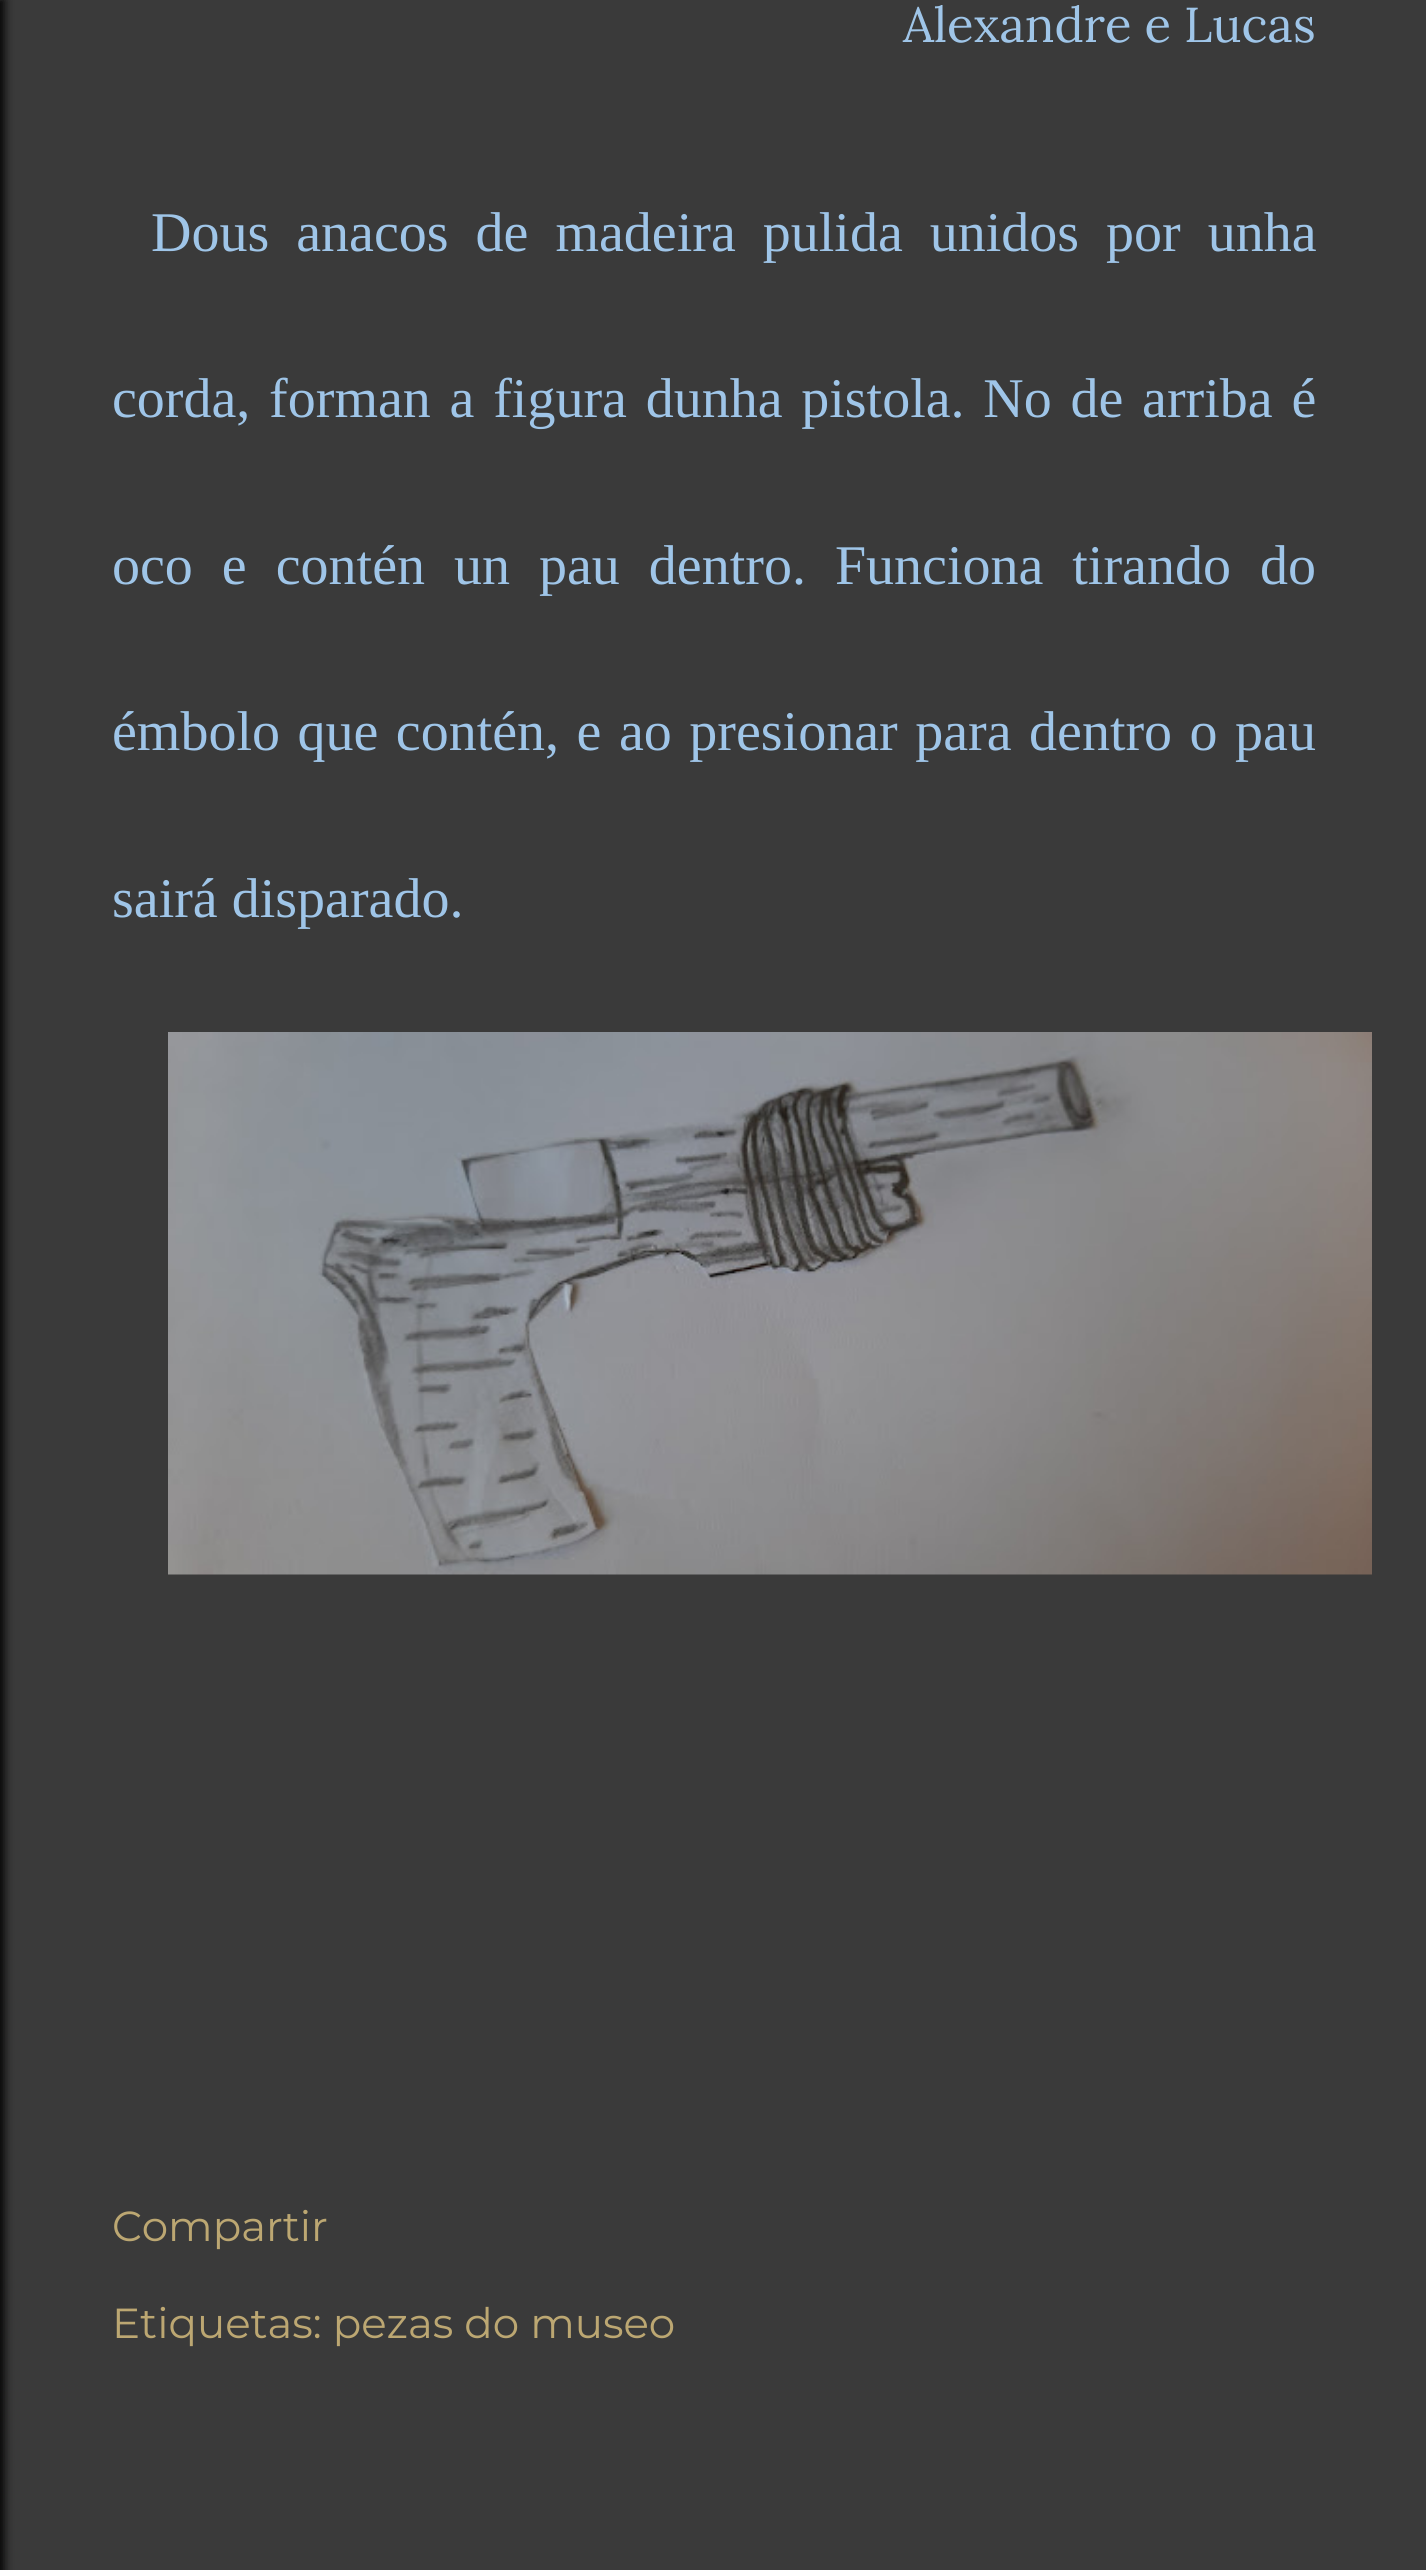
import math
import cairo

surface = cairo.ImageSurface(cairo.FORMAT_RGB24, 1426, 2570)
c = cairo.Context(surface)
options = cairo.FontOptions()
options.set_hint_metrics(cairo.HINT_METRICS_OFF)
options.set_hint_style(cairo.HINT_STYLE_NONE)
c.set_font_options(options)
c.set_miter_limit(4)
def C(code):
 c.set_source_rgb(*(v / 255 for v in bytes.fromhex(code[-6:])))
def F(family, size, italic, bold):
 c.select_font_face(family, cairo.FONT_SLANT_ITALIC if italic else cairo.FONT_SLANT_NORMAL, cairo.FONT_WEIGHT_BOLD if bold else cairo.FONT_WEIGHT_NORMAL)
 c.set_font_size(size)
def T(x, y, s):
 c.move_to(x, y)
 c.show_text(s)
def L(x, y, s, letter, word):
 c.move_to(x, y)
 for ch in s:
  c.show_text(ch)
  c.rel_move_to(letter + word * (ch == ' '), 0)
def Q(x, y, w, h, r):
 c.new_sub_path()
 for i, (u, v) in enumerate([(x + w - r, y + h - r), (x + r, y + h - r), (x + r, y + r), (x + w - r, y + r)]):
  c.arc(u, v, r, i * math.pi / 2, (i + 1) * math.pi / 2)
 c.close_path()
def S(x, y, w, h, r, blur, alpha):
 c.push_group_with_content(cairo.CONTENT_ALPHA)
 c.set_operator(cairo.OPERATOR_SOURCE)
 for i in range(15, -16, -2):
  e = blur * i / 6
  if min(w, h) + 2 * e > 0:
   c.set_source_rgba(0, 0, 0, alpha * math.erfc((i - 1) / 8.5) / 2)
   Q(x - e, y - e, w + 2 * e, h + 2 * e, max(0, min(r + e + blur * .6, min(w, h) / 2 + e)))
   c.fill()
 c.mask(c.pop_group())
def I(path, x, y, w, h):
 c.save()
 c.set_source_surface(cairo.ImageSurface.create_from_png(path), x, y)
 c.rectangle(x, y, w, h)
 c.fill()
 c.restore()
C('3a3a3a')
c.paint()
C('000000')
S(-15,0,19,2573,0,5,1)
F('Lora',49,0,0)
C('9fc5e8')
T(903,42,'Alexandre e Lucas')
F('Liberation Serif',56,0,0)
L(151,251,'Dous anacos de madeira pulida unidos por unha',0,13)
L(112,417,'corda, forman a figura dunha pistola. No de arriba é',0,4.75)
L(112,584,'oco e contén un pau dentro. Funciona tirando do',0,15)
L(112,750,'émbolo que contén, e ao presionar para dentro o pau',0,3.5)
T(112,917,'sairá disparado.')
I('1.png',168,1032,1204,543)
F('Montserrat',42,0,0)
C('bca772')
T(112,2241,'Compartir')
T(112,2338,'Etiquetas: pezas do museo')
surface.write_to_png('o.png')
